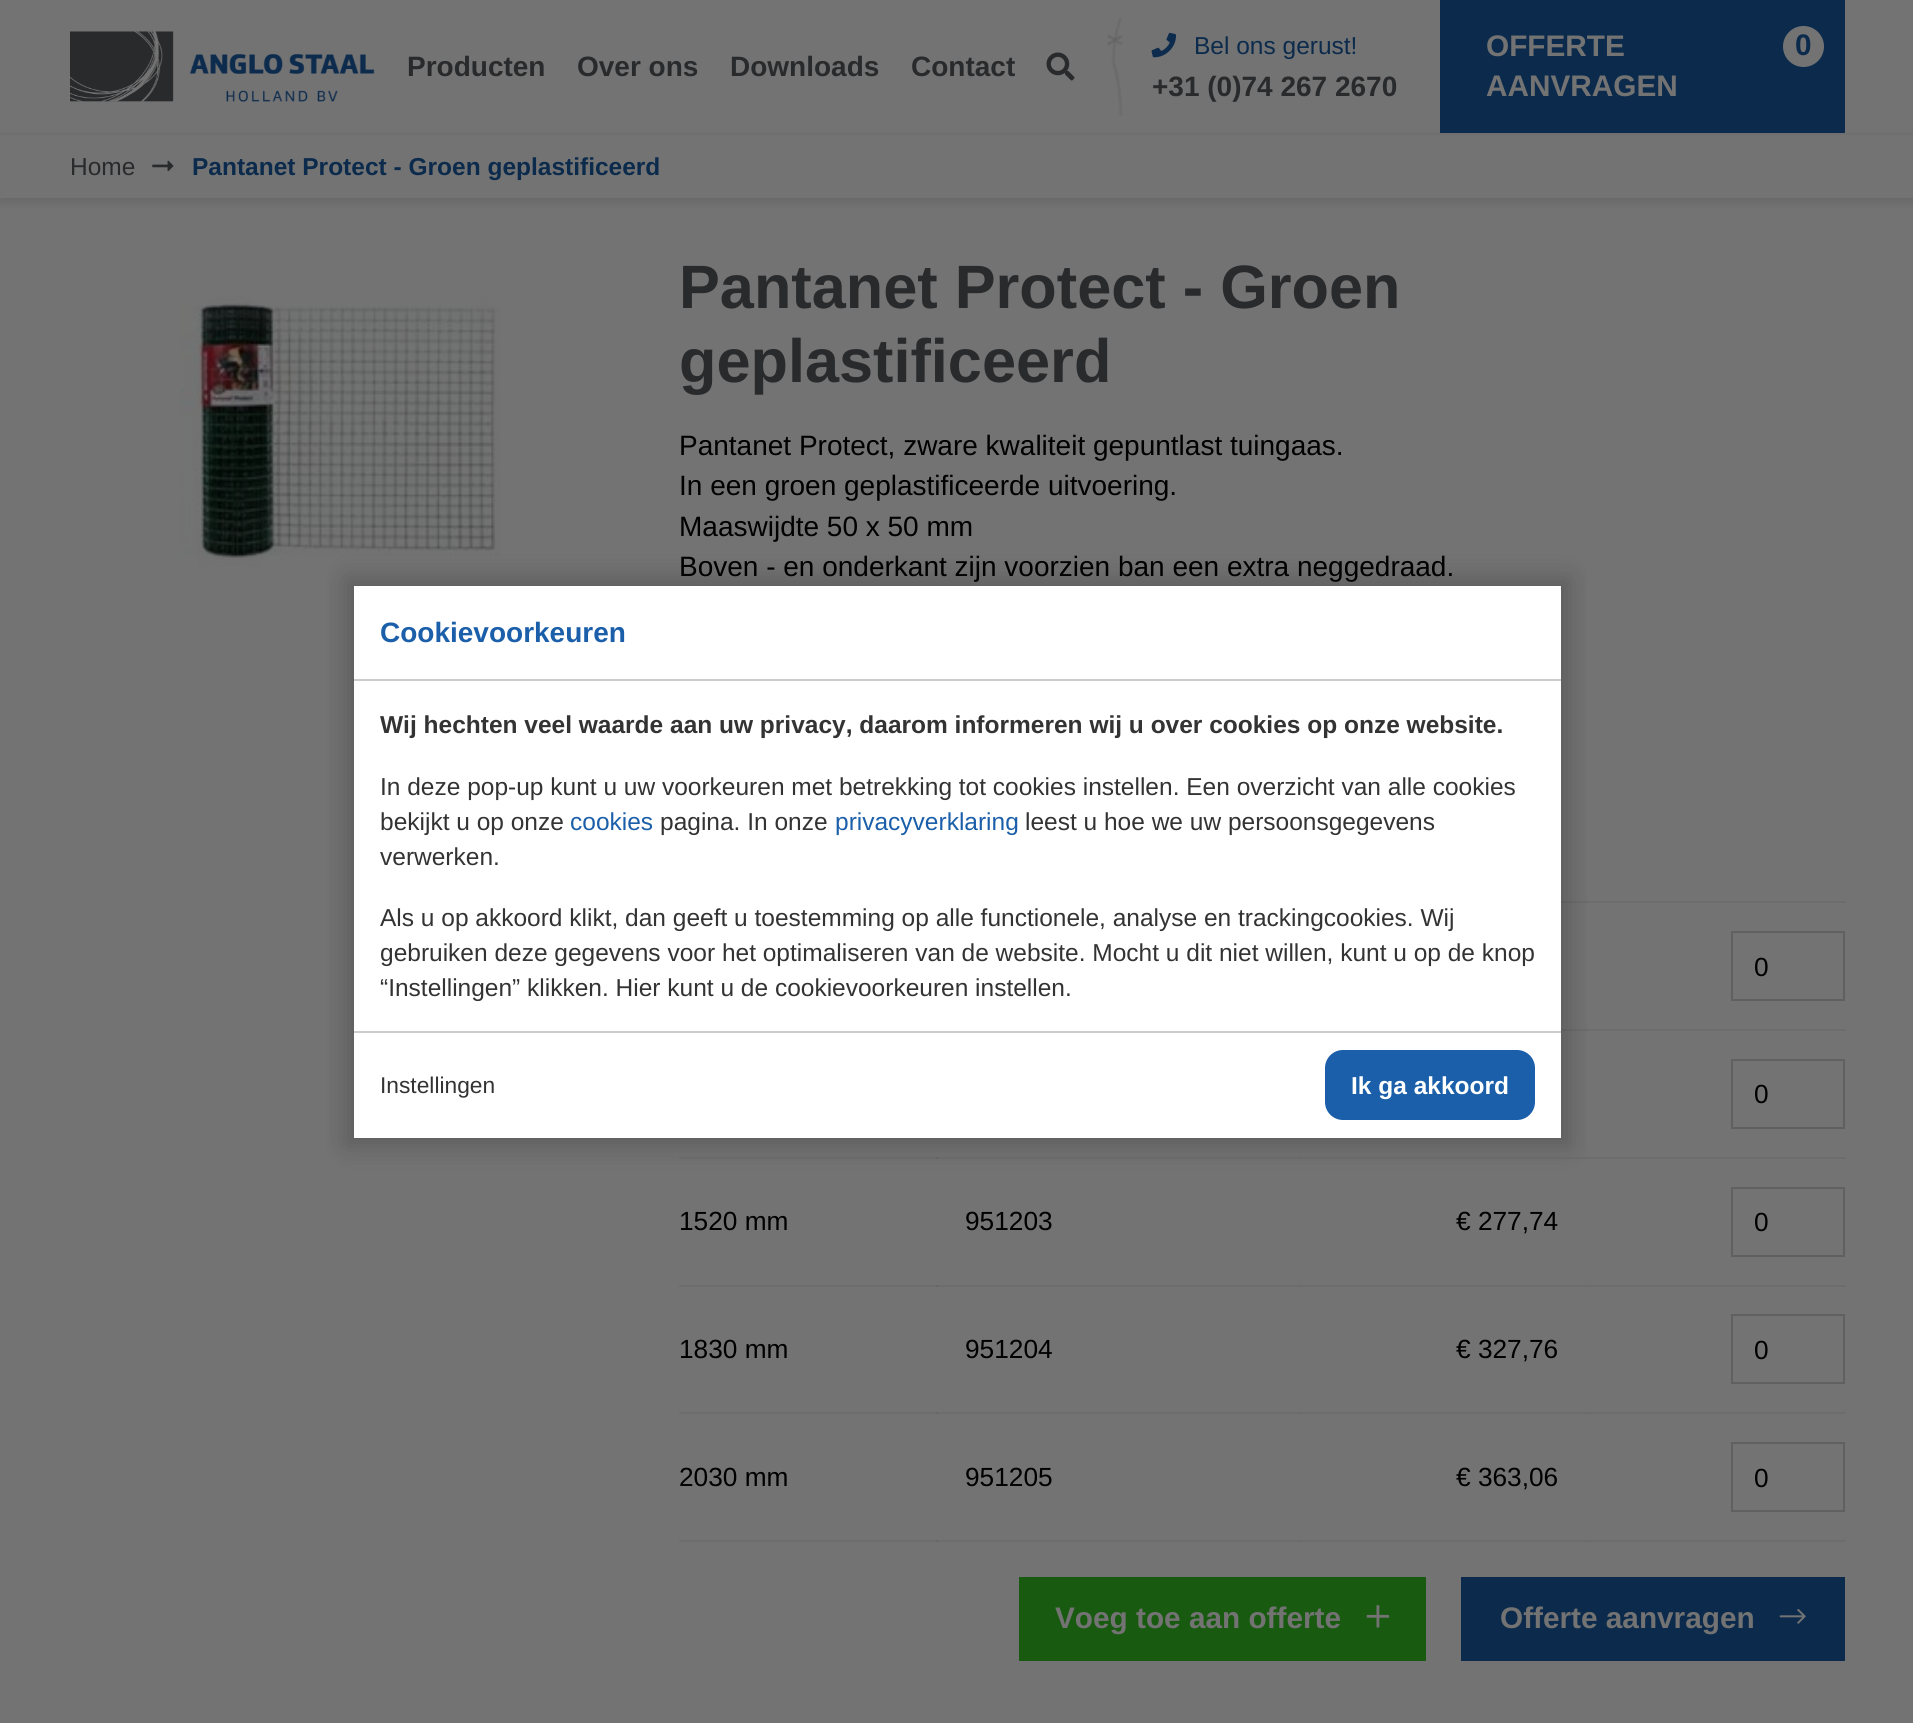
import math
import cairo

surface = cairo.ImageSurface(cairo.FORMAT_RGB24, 1913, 1723)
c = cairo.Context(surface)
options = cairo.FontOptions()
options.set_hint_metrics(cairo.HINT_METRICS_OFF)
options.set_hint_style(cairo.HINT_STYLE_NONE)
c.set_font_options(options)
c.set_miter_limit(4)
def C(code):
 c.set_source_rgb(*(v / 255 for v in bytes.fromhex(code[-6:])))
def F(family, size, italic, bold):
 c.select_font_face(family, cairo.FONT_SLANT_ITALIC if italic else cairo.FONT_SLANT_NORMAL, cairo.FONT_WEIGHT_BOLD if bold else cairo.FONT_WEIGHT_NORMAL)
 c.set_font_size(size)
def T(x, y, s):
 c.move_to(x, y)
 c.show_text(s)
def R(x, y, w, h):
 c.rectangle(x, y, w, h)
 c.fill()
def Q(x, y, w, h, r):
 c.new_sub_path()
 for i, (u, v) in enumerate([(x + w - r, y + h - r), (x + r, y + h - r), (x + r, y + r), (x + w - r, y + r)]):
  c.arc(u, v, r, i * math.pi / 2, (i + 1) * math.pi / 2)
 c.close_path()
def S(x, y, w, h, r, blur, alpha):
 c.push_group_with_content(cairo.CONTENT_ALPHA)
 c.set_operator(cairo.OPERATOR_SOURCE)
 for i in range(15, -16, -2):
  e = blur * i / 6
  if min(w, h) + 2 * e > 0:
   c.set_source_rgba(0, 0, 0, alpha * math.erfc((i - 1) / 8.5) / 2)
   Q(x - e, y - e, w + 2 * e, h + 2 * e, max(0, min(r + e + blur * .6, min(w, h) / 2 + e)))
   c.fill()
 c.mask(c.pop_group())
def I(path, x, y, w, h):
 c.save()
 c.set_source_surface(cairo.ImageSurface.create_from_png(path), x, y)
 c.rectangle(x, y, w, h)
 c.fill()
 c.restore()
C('737373')
c.paint()
C('6d6d6d')
R(1561,901,285,2)
R(1561,1029,285,2)
R(679,1157,1167,2)
C('676767')
R(936,1157,2,2)
R(1299,1157,1,2)
C('6d6d6d')
R(679,1285,1167,2)
C('676767')
R(936,1285,2,2)
R(1299,1285,1,2)
C('6d6d6d')
R(679,1412,1167,2)
C('676767')
R(936,1412,2,2)
R(1299,1412,1,2)
C('6d6d6d')
R(679,1540,1167,2)
C('676767')
R(936,1540,2,2)
R(1299,1540,1,2)
I('1.png',70,31,305,71)
F('Liberation Sans',28,0,1)
C('292a2c')
T(407,76,'Producten')
T(577,76,'Over ons')
T(730,76,'Downloads')
T(911,76,'Contact')
I('2.png',1046,52,29,29)
I('3.png',1107,17,16,99)
I('4.png',1151,32,26,26)
F('Liberation Sans',24.5,0,0)
C('0c2b4c')
T(1194,54,'Bel ons gerust!')
F('Liberation Sans',28,0,1)
C('292a2c')
T(1152,96,'+31 (0)74 267 2670')
C('000000')
S(0,138,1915,65,0,4.5,.1)
C('0c2b4c')
R(1440,0,405,133)
F('Liberation Sans',29.75,0,1)
C('737373')
T(1486,56,'OFFERTE')
T(1486,96,'AANVRAGEN')
c.new_path()
c.arc(1803.5,46.5,20.5,0,2 * math.pi)
c.fill()
C('0c2b4c')
T(1795,55,'0')
C('737373')
R(0,135,1913,63)
C('6f6f6f')
R(0,133,1913,2)
F('Liberation Sans',24.5,0,0)
C('292a2c')
T(70,175,'Home')
I('5.png',152,160,22,12)
F('Liberation Sans',24.5,0,1)
C('0c2b4c')
T(192,175,'Pantanet Protect - Groen geplastificeerd')
I('6.png',180,296,320,271)
F('Liberation Sans',61.25,0,1)
C('292a2c')
T(679,308,'Pantanet Protect - Groen')
T(679,382,'geplastificeerd')
F('Liberation Sans',28,0,0)
C('000000')
T(679,455,'Pantanet Protect, zware kwaliteit gepuntlast tuingaas.')
T(679,495,'In een groen geplastificeerde uitvoering.')
T(679,536,'Maaswijdte 50 x 50 mm')
T(679,576,'Boven - en onderkant zijn voorzien ban een extra neggedraad.')
C('676767')
R(1586,901,1,2)
R(1586,1029,1,2)
c.rectangle(1732,932,112,68)
C('606060')
c.stroke()
F('Liberation Sans',26.25,0,0)
C('000000')
T(1754,976,'0')
C('676767')
R(1586,1157,1,2)
c.rectangle(1732,1060,112,68)
C('606060')
c.stroke()
C('000000')
T(1754,1103,'0')
T(679,1230,'1520 mm')
T(965,1230,'951203')
T(1456,1230,'€ 277,74')
C('676767')
R(1586,1285,1,2)
c.rectangle(1732,1188,112,68)
C('606060')
c.stroke()
C('000000')
T(1754,1231,'0')
T(679,1358,'1830 mm')
T(965,1358,'951204')
T(1456,1358,'€ 327,76')
C('676767')
R(1586,1412,1,2)
c.rectangle(1732,1315,112,68)
C('606060')
c.stroke()
C('000000')
T(1754,1359,'0')
T(679,1486,'2030 mm')
T(965,1486,'951205')
T(1456,1486,'€ 363,06')
C('676767')
R(1586,1540,1,2)
c.rectangle(1732,1443,112,68)
C('606060')
c.stroke()
C('000000')
T(1754,1487,'0')
C('185a10')
R(1019,1577,407,84)
F('Liberation Sans',29.75,0,1)
C('737373')
T(1055,1628,'Voeg toe aan offerte')
I('7.png',1366,1605,24,23)
C('0c2b4c')
R(1461,1577,384,84)
C('737373')
T(1500,1628,'Offerte aanvragen')
I('8.png',1779,1608,27,16)
c.save()
c.rectangle(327,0,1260,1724)
c.clip()
C('000000')
S(345,578,1225,568,0,13,.2)
c.restore()
C('ffffff')
R(354,586,1207,552)
C('cccccc')
R(354,679,1207,2)
F('Liberation Sans',28,0,1)
C('1b5faa')
T(380,642,'Cookievoorkeuren')
F('Liberation Sans',24.5,0,1)
C('333333')
T(380,733,'Wij hechten veel waarde aan uw privacy, daarom informeren wij u over cookies op onze website.')
F('Liberation Sans',24.5,0,0)
T(380,795,'In deze pop-up kunt u uw voorkeuren met betrekking tot cookies instellen. Een overzicht van alle cookies')
T(380,830,'bekijkt u op onze')
C('1b5faa')
T(570,830,'cookies')
C('333333')
T(660,830,'pagina. In onze')
C('1b5faa')
T(835,830,'privacyverklaring')
C('333333')
T(1025,830,'leest u hoe we uw persoonsgegevens')
T(380,865,'verwerken.')
T(380,926,'Als u op akkoord klikt, dan geeft u toestemming op alle functionele, analyse en trackingcookies. Wij')
T(380,961,'gebruiken deze gegevens voor het optimaliseren van de website. Mocht u dit niet willen, kunt u op de knop')
T(380,996,'“Instellingen” klikken. Hier kunt u de cookievoorkeuren instellen.')
C('cccccc')
R(354,1031,1207,2)
F('Liberation Sans',22.75,0,0)
C('333333')
T(380,1093,'Instellingen')
C('1b5faa')
Q(1326,1051,208,68,17)
c.fill_preserve()
c.stroke()
F('Liberation Sans',24.5,0,1)
C('ffffff')
T(1351,1094,'Ik ga akkoord')
surface.write_to_png('o.png')
